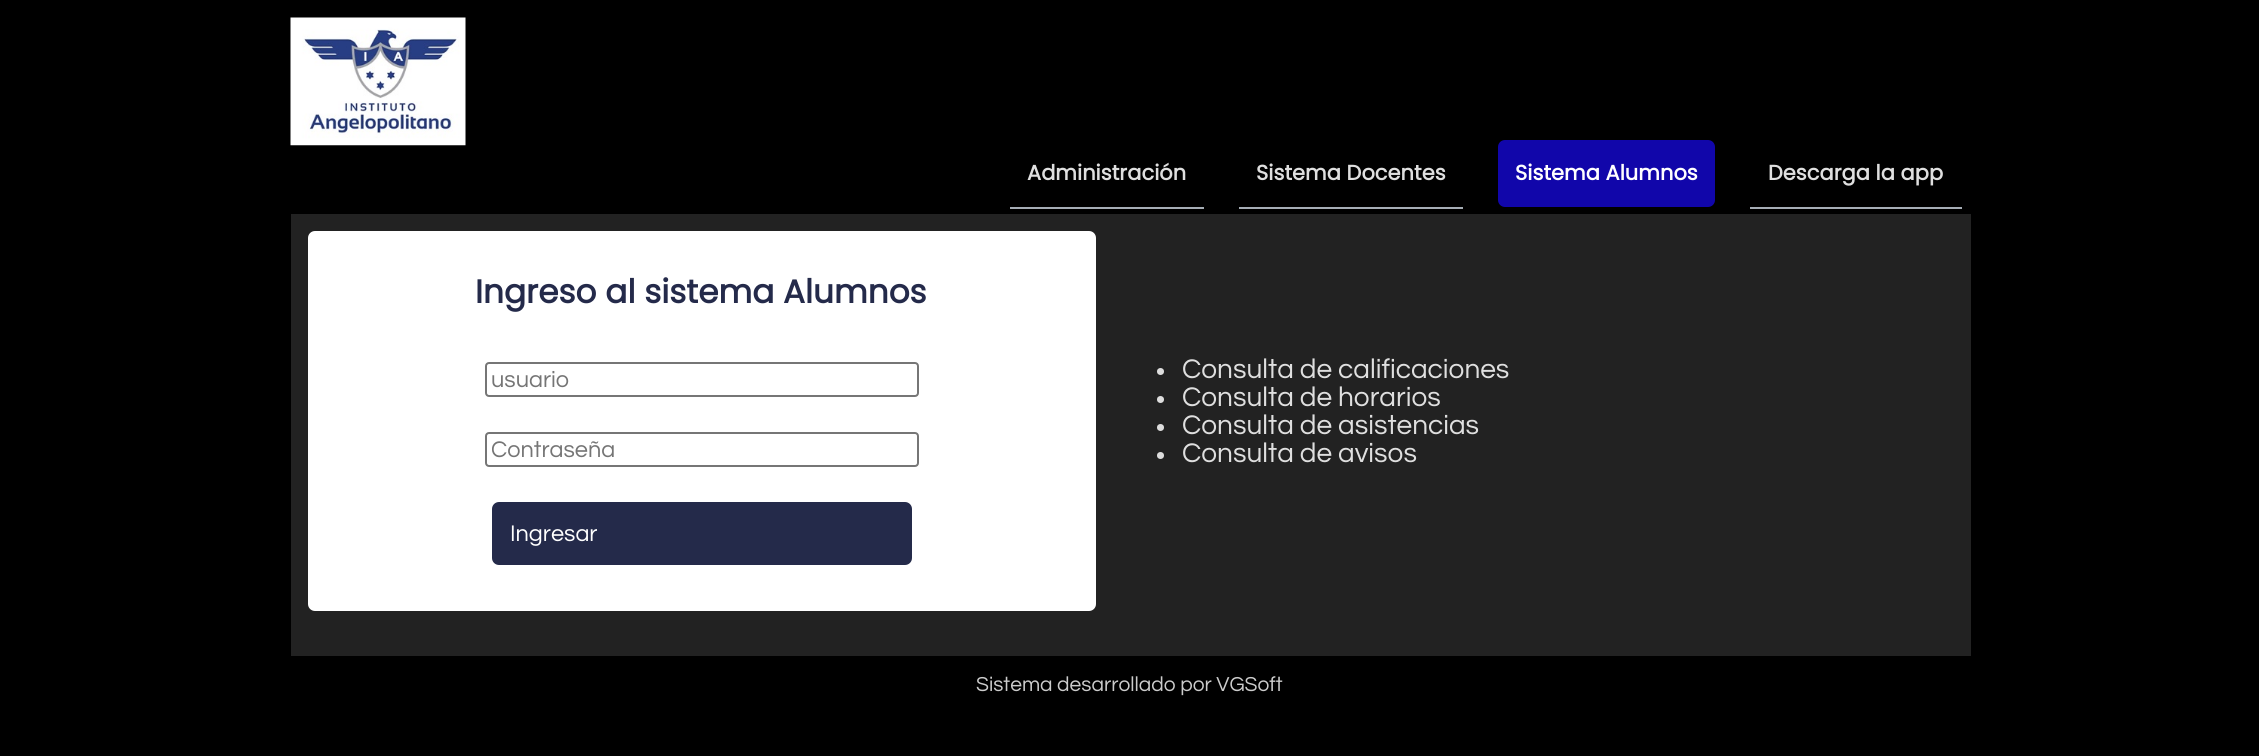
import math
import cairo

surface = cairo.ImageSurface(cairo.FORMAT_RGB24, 2259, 756)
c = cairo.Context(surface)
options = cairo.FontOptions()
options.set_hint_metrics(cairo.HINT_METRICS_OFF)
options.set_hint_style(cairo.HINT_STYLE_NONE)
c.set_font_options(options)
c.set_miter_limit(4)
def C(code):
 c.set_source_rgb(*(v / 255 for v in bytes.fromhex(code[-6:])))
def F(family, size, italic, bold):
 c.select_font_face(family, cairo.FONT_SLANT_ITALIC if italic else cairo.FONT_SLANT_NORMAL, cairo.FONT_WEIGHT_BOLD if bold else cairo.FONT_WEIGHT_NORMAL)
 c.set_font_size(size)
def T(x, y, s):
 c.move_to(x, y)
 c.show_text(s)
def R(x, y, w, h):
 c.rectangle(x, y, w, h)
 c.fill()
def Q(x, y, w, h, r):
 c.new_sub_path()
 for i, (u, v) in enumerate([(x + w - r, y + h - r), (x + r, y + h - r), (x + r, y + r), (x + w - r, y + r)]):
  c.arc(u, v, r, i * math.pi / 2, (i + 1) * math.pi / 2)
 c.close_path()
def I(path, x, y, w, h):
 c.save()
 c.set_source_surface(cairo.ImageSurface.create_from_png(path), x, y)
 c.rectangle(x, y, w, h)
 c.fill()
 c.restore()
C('000000')
c.paint()
I('1.png',290,17,176,129)
C('a6adb5')
R(1010,207,194,2)
F('Poppins',21,0,1)
C('dfdfdf')
T(1027,180,'Administración')
C('a6adb5')
R(1239,207,224,2)
C('dfdfdf')
T(1256,180,'Sistema Docentes')
C('1106aa')
Q(1498,140,217,67,7)
c.fill()
C('ffffff')
T(1515,180,'Sistema Alumnos')
C('a6adb5')
R(1750,207,212,2)
C('dfdfdf')
T(1768,180,'Descarga la app')
C('222222')
R(291,214,1680,442)
C('ffffff')
Q(308,231,788,380,7)
c.fill()
F('Poppins',32.7,0,1)
C('242a4a')
T(475,303,'Ingreso al sistema Alumnos')
Q(486,363,432,33,3)
C('767676')
c.stroke()
F('Questrial',23.5,0,0)
C('757575')
T(491,387,'usuario')
Q(486,433,432,33,3)
C('767676')
c.stroke()
c.save()
c.rectangle(492,438,420,24)
c.clip()
C('757575')
T(491,457,'Contraseña')
c.restore()
C('242a4a')
Q(493,503,418,61,6)
c.fill_preserve()
c.stroke()
C('ffffff')
T(510,541,'Ingresar')
C('dddddd')
c.new_path()
c.arc(1160.5,371.5,3.5,0,2 * math.pi)
c.fill()
F('Questrial',28,0,0)
C('dfdfdf')
T(1182,378,'Consulta de calificaciones')
C('dddddd')
c.new_path()
c.arc(1160.5,399.5,3.5,0,2 * math.pi)
c.fill()
C('dfdfdf')
T(1182,406,'Consulta de horarios')
C('dddddd')
c.new_path()
c.arc(1160.5,427.5,3.5,0,2 * math.pi)
c.fill()
C('dfdfdf')
T(1182,434,'Consulta de asistencias')
C('dddddd')
c.new_path()
c.arc(1160.5,455.5,3.5,0,2 * math.pi)
c.fill()
C('dfdfdf')
T(1182,462,'Consulta de avisos')
F('Questrial',21,0,0)
C('cccccc')
T(976,691,'Sistema desarrollado por VGSoft')
surface.write_to_png('o.png')
